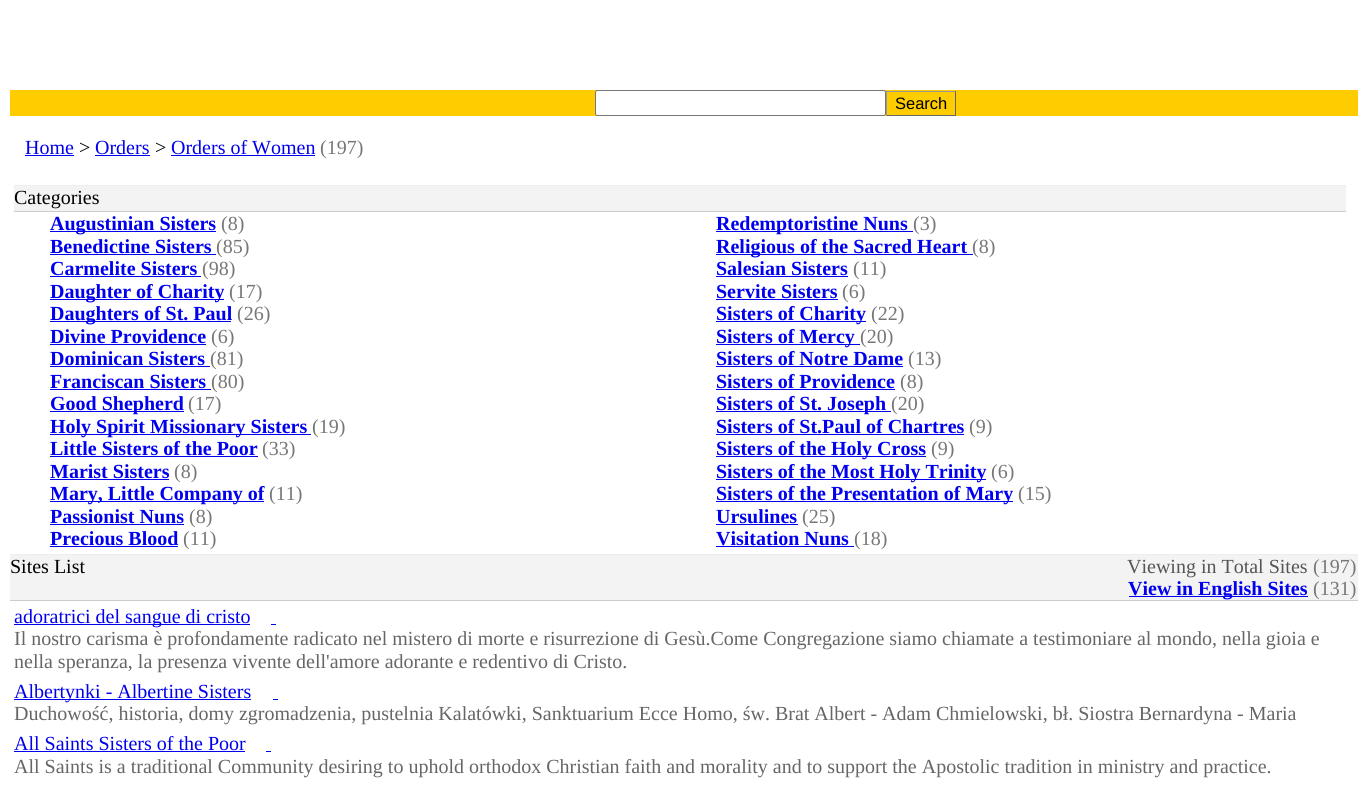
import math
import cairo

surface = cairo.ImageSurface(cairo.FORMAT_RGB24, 1367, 798)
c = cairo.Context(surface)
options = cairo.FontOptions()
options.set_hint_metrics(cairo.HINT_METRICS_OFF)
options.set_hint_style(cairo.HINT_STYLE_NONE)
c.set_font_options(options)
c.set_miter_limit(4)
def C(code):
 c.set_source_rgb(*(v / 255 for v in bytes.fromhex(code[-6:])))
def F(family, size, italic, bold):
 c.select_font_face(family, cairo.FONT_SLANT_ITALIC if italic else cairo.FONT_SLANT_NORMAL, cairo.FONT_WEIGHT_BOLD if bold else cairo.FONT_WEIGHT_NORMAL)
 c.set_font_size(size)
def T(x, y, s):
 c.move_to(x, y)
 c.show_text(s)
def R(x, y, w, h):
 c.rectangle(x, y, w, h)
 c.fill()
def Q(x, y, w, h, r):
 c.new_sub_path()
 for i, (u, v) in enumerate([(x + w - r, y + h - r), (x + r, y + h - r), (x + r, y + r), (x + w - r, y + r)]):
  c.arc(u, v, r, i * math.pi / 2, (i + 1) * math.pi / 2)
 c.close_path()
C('ffffff')
c.paint()
C('ffcc00')
R(10,90,1348,26)
C('ffffff')
Q(595.5,90.5,290,25,2)
c.fill_preserve()
C('767676')
c.set_line_width(1)
c.stroke()
C('999999')
R(886,91,70,1)
C('666666')
R(955,91,1,25)
R(886,115,70,1)
C('999999')
R(886,91,1,25)
F('Liberation Sans',16.5,0,0)
C('000000')
T(895,109,'Search')
F('Liberation Serif',20,0,0)
C('0000ee')
T(25,154,'Home')
R(25,155,49,1)
C('000000')
T(79,154,'>')
C('0000ee')
T(95,154,'Orders')
R(95,155,55,1)
C('000000')
T(155,154,'>')
C('0000ee')
T(171,154,'Orders of Women')
R(171,155,144,1)
C('777777')
T(320,154,'(197)')
C('eeeeee')
R(14,185,1332,1)
C('f3f3f3')
R(14,186,1332,25)
C('000000')
T(14,204,'Categories')
C('cccccc')
R(14,211,1332,1)
C('0000ee')
R(50,231,166,1)
F('Liberation Serif',20,0,1)
T(50,230,'Augustinian Sisters')
F('Liberation Serif',20,0,0)
C('777777')
T(221,230,'(8)')
F('Liberation Serif',20,0,1)
C('0000ee')
T(50,253,'Benedictine Sisters')
R(50,254,166,1)
F('Liberation Serif',20,0,0)
C('777777')
T(216,253,'(85)')
F('Liberation Serif',20,0,1)
C('0000ee')
T(50,275,'Carmelite Sisters')
R(50,276,151,1)
F('Liberation Serif',20,0,0)
C('777777')
T(202,275,'(98)')
C('0000ee')
R(50,299,174,1)
F('Liberation Serif',20,0,1)
T(50,298,'Daughter of Charity')
F('Liberation Serif',20,0,0)
C('777777')
T(229,298,'(17)')
C('0000ee')
R(50,321,181,1)
F('Liberation Serif',20,0,1)
T(50,320,'Daughters of St. Paul')
F('Liberation Serif',20,0,0)
C('777777')
T(237,320,'(26)')
F('Liberation Serif',20,0,1)
C('0000ee')
T(50,343,'Divine Providence')
R(50,344,156,1)
F('Liberation Serif',20,0,0)
C('777777')
T(211,343,'(6)')
F('Liberation Serif',20,0,1)
C('0000ee')
T(50,365,'Dominican Sisters')
R(50,366,160,1)
F('Liberation Serif',20,0,0)
C('777777')
T(210,365,'(81)')
F('Liberation Serif',20,0,1)
C('0000ee')
T(50,388,'Franciscan Sisters')
R(50,389,161,1)
F('Liberation Serif',20,0,0)
C('777777')
T(211,388,'(80)')
C('0000ee')
R(50,411,134,1)
F('Liberation Serif',20,0,1)
T(50,410,'Good Shepherd')
F('Liberation Serif',20,0,0)
C('777777')
T(188,410,'(17)')
C('0000ee')
R(50,434,261,1)
F('Liberation Serif',20,0,1)
T(50,433,'Holy Spirit Missionary Sisters')
F('Liberation Serif',20,0,0)
C('777777')
T(312,433,'(19)')
F('Liberation Serif',20,0,1)
C('0000ee')
T(50,455,'Little Sisters of the Poor')
R(50,456,208,1)
F('Liberation Serif',20,0,0)
C('777777')
T(262,455,'(33)')
F('Liberation Serif',20,0,1)
C('0000ee')
T(50,478,'Marist Sisters')
R(50,479,119,1)
F('Liberation Serif',20,0,0)
C('777777')
T(174,478,'(8)')
C('0000ee')
R(50,501,214,1)
F('Liberation Serif',20,0,1)
T(50,500,'Mary, Little Company of')
F('Liberation Serif',20,0,0)
C('777777')
T(269,500,'(11)')
F('Liberation Serif',20,0,1)
C('0000ee')
T(50,523,'Passionist Nuns')
R(50,524,134,1)
F('Liberation Serif',20,0,0)
C('777777')
T(189,523,'(8)')
F('Liberation Serif',20,0,1)
C('0000ee')
T(50,545,'Precious Blood')
R(50,546,128,1)
F('Liberation Serif',20,0,0)
C('777777')
T(183,545,'(11)')
C('0000ee')
R(716,231,197,1)
F('Liberation Serif',20,0,1)
T(716,230,'Redemptoristine Nuns')
F('Liberation Serif',20,0,0)
C('777777')
T(913,230,'(3)')
C('0000ee')
R(716,254,257,1)
F('Liberation Serif',20,0,1)
T(716,253,'Religious of the Sacred Heart')
F('Liberation Serif',20,0,0)
C('777777')
T(972,253,'(8)')
F('Liberation Serif',20,0,1)
C('0000ee')
T(716,275,'Salesian Sisters')
R(716,276,132,1)
F('Liberation Serif',20,0,0)
C('777777')
T(853,275,'(11)')
F('Liberation Serif',20,0,1)
C('0000ee')
T(716,298,'Servite Sisters')
R(716,299,122,1)
F('Liberation Serif',20,0,0)
C('777777')
T(842,298,'(6)')
C('0000ee')
R(716,321,150,1)
F('Liberation Serif',20,0,1)
T(716,320,'Sisters of Charity')
F('Liberation Serif',20,0,0)
C('777777')
T(871,320,'(22)')
C('0000ee')
R(716,344,144,1)
F('Liberation Serif',20,0,1)
T(716,343,'Sisters of Mercy')
F('Liberation Serif',20,0,0)
C('777777')
T(860,343,'(20)')
F('Liberation Serif',20,0,1)
C('0000ee')
T(716,365,'Sisters of Notre Dame')
R(716,366,187,1)
F('Liberation Serif',20,0,0)
C('777777')
T(908,365,'(13)')
F('Liberation Serif',20,0,1)
C('0000ee')
T(716,388,'Sisters of Providence')
R(716,389,179,1)
F('Liberation Serif',20,0,0)
C('777777')
T(900,388,'(8)')
C('0000ee')
R(716,411,175,1)
F('Liberation Serif',20,0,1)
T(716,410,'Sisters of St. Joseph')
F('Liberation Serif',20,0,0)
C('777777')
T(891,410,'(20)')
F('Liberation Serif',20,0,1)
C('0000ee')
T(716,433,'Sisters of St.Paul of Chartres')
R(716,434,248,1)
F('Liberation Serif',20,0,0)
C('777777')
T(969,433,'(9)')
C('0000ee')
R(716,456,210,1)
F('Liberation Serif',20,0,1)
T(716,455,'Sisters of the Holy Cross')
F('Liberation Serif',20,0,0)
C('777777')
T(931,455,'(9)')
C('0000ee')
R(716,479,270,1)
F('Liberation Serif',20,0,1)
T(716,478,'Sisters of the Most Holy Trinity')
F('Liberation Serif',20,0,0)
C('777777')
T(991,478,'(6)')
C('0000ee')
R(716,501,297,1)
F('Liberation Serif',20,0,1)
T(716,500,'Sisters of the Presentation of Mary')
F('Liberation Serif',20,0,0)
C('777777')
T(1018,500,'(15)')
F('Liberation Serif',20,0,1)
C('0000ee')
T(716,523,'Ursulines')
R(716,524,82,1)
F('Liberation Serif',20,0,0)
C('777777')
T(802,523,'(25)')
F('Liberation Serif',20,0,1)
C('0000ee')
T(716,545,'Visitation Nuns')
R(716,546,138,1)
F('Liberation Serif',20,0,0)
C('777777')
T(854,545,'(18)')
C('eeeeee')
R(10,554,1348,1)
C('f3f3f3')
R(10,555,1348,45)
C('000000')
T(10,573,'Sites List')
C('555555')
T(1127,573,'Viewing in Total Sites')
C('777777')
T(1313,573,'(197)')
C('0000ee')
R(1129,596,179,1)
F('Liberation Serif',20,0,1)
T(1128,595,'View in English Sites')
F('Liberation Serif',20,0,0)
C('777777')
T(1313,595,'(131)')
C('cccccc')
R(10,600,1348,1)
C('0000ee')
R(14,624,236,1)
T(14,623,'adoratrici del sangue di cristo')
R(271,624,5,1)
C('666666')
T(14,645,'Il nostro carisma è profondamente radicato nel mistero di morte e risurrezione di Gesù.Come Congregazione siamo chiamate a testimoniare al mondo, nella gioia e')
T(14,668,'nella speranza, la presenza vivente dell\'amore adorante e redentivo di Cristo.')
C('0000ee')
R(14,699,237,1)
T(14,698,'Albertynki - Albertine Sisters')
R(273,699,5,1)
C('666666')
T(14,720,'Duchowość, historia, domy zgromadzenia, pustelnia Kalatówki, Sanktuarium Ecce Homo, św. Brat Albert - Adam Chmielowski, bł. Siostra Bernardyna - Maria')
C('0000ee')
T(14,750,'All Saints Sisters of the Poor')
R(14,751,231,1)
R(266,751,5,1)
C('666666')
T(14,773,'All Saints is a traditional Community desiring to uphold orthodox Christian faith and morality and to support the Apostolic tradition in ministry and practice.')
surface.write_to_png('o.png')
